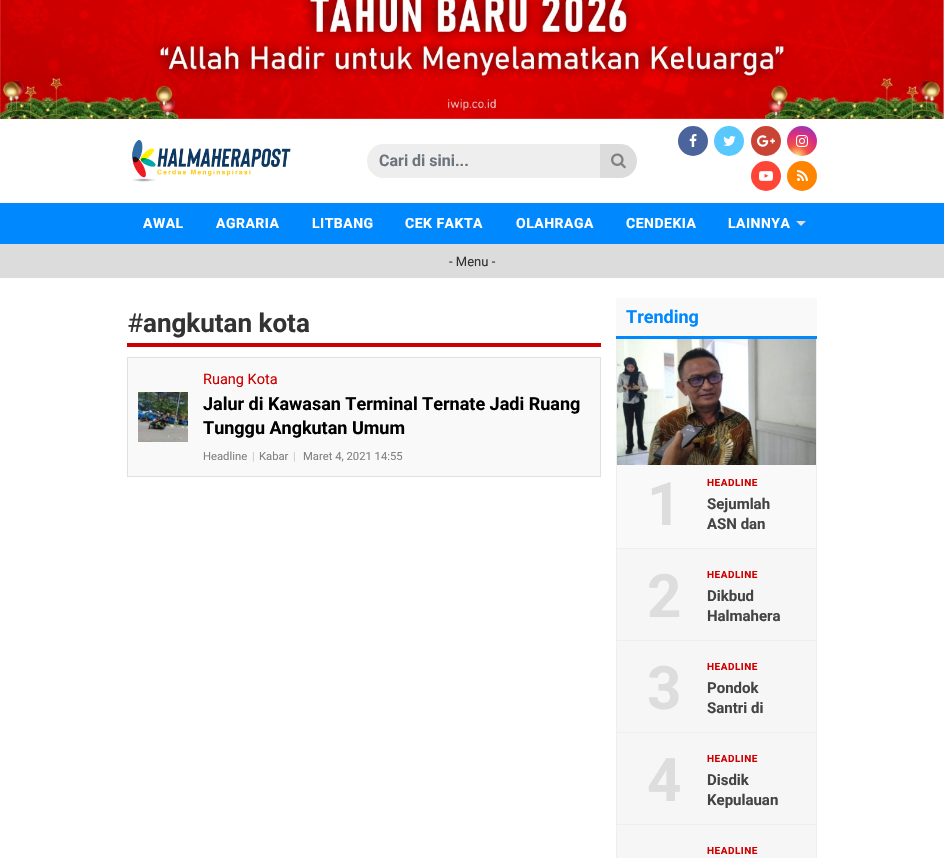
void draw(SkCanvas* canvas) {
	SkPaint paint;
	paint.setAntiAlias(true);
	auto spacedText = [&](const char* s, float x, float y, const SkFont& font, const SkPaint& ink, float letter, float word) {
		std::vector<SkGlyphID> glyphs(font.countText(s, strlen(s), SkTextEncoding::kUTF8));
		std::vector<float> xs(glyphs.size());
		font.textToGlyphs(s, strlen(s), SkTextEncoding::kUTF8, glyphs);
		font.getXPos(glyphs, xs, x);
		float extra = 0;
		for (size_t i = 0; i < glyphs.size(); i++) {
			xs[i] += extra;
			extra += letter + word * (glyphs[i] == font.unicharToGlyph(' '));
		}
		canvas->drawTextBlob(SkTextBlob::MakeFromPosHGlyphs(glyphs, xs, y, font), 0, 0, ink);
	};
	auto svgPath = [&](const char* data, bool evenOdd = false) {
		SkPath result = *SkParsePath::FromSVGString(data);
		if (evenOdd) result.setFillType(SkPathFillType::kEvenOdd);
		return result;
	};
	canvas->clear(0xffffffff);
	canvas->drawImageRect(SkImages::DeferredFromEncodedData(SkData::MakeFromFileName("img1.png")), SkRect::MakeXYWH(0, 0, 944, 119), SkSamplingOptions());
	canvas->drawImageRect(SkImages::DeferredFromEncodedData(SkData::MakeFromFileName("img2.png")), SkRect::MakeXYWH(132, 139, 159, 43), SkSamplingOptions());
	paint.setColor(0xffeeeeee);
	canvas->drawPath(svgPath("M384 144H600V178H384C374.5 178 367 170.5 367 161C367 151.5 374.5 144 384 144Z"), paint);
	SkFont f1(fontMgr->matchFamilyStyle("Roboto", SkFontStyle::Bold()), 16);
	f1.setSubpixel(true);
	paint.setColor(0xff6c757d);
	canvas->drawString("Cari di sini...", 379, 166, f1, paint);
	paint.setColor(0xffdcdcdc);
	canvas->drawPath(svgPath("M600 144H620C629.5 144 637 151.5 637 161C637 170.5 629.5 178 620 178H600Z"), paint);
	canvas->drawImageRect(SkImages::DeferredFromEncodedData(SkData::MakeFromFileName("img3.png")), SkRect::MakeXYWH(611, 153, 15, 16), SkSamplingOptions());
	paint.setColor(0xff4b649b);
	canvas->drawCircle(693, 141, 15, paint);
	canvas->drawImageRect(SkImages::DeferredFromEncodedData(SkData::MakeFromFileName("img4.png")), SkRect::MakeXYWH(689, 134, 8, 13), SkSamplingOptions());
	paint.setColor(0xff59c8ff);
	canvas->drawCircle(729, 141, 15, paint);
	canvas->drawImageRect(SkImages::DeferredFromEncodedData(SkData::MakeFromFileName("img5.png")), SkRect::MakeXYWH(723, 136, 13, 10), SkSamplingOptions());
	paint.setColor(0xffc94434);
	canvas->drawCircle(766, 141, 15, paint);
	canvas->drawImageRect(SkImages::DeferredFromEncodedData(SkData::MakeFromFileName("img6.png")), SkRect::MakeXYWH(757, 135, 18, 12), SkSamplingOptions());
	{
		const SkColor colors[] = {0xfffed373, 0xfff15245, 0xffd92e7f, 0xff9b36b7, 0xff515ecf};
		const float stops[] = {0.04, 0.3, 0.62, 0.85, 1};
		paint.setShader(SkGradientShader::MakeRadial({797, 156}, 36, colors, stops, 5, SkTileMode::kClamp));
		paint.setAlpha(255);
	}
	canvas->drawCircle(802, 141, 15, paint);
	canvas->drawImageRect(SkImages::DeferredFromEncodedData(SkData::MakeFromFileName("img7.png")), SkRect::MakeXYWH(796, 135, 12, 12), SkSamplingOptions());
	paint.setShader(nullptr);
	paint.setColor(0xffff4536);
	canvas->drawCircle(766, 176, 15, paint);
	canvas->drawImageRect(SkImages::DeferredFromEncodedData(SkData::MakeFromFileName("img8.png")), SkRect::MakeXYWH(759, 171, 14, 10), SkSamplingOptions());
	paint.setColor(0xffff8400);
	canvas->drawCircle(802, 176, 15, paint);
	canvas->drawImageRect(SkImages::DeferredFromEncodedData(SkData::MakeFromFileName("img9.png")), SkRect::MakeXYWH(797, 170, 11, 11), SkSamplingOptions());
	paint.setColor(0xff0088ff);
	canvas->drawRect(SkRect::MakeXYWH(0, 203, 944, 41), paint);
	SkFont f2(fontMgr->matchFamilyStyle("Roboto", SkFontStyle::Bold()), 14);
	f2.setSubpixel(true);
	paint.setColor(0xffffffff);
	spacedText("AWAL", 143, 228, f2, paint, 0.5, 0);
	spacedText("AGRARIA", 216, 228, f2, paint, 0.5, 0);
	spacedText("LITBANG", 312, 228, f2, paint, 0.5, 0);
	spacedText("CEK FAKTA", 405, 228, f2, paint, 0.5, 0);
	spacedText("OLAHRAGA", 516, 228, f2, paint, 0.5, 0);
	spacedText("CENDEKIA", 626, 228, f2, paint, 0.5, 0);
	spacedText("LAINNYA", 728, 228, f2, paint, 0.5, 0);
	paint.setColor(0xffdddddd);
	canvas->drawPath(svgPath("M796 221H806L801 226Z"), paint);
	paint.setColor(0xffdcdcdc);
	canvas->drawRect(SkRect::MakeXYWH(0, 244, 944, 34), paint);
	SkFont f3(fontMgr->matchFamilyStyle("Roboto", SkFontStyle::Normal()), 13);
	f3.setSubpixel(true);
	paint.setColor(0xff333333);
	canvas->drawString("- Menu -", 449, 266, f3, paint);
	paint.setColor(0xffcc0000);
	canvas->drawRect(SkRect::MakeXYWH(127, 343, 474, 4), paint);
	SkFont f4(fontMgr->matchFamilyStyle("Roboto", SkFontStyle::Normal()), 26);
	f4.setSubpixel(true);
	paint.setColor(0xff333333);
	canvas->drawString("#", 127, 332, f4, paint);
	SkFont f5(fontMgr->matchFamilyStyle("Roboto", SkFontStyle::Bold()), 26);
	f5.setSubpixel(true);
	canvas->drawString("angkutan kota", 143, 332, f5, paint);
	paint.setColor(0xfff9f9f9);
	canvas->drawRect(SkRect::MakeXYWH(127.5, 357.5, 473, 119), paint);
	paint.setStroke(true);
	paint.setStrokeWidth(1);
	paint.setColor(0xffe0e0e0);
	canvas->drawRect(SkRect::MakeXYWH(127.5, 357.5, 473, 119), paint);
	canvas->drawImageRect(SkImages::DeferredFromEncodedData(SkData::MakeFromFileName("img10.png")), SkRect::MakeXYWH(138, 392, 50, 50), SkSamplingOptions());
	SkFont f6(fontMgr->matchFamilyStyle("Roboto", SkFontStyle::Normal()), 14.5);
	f6.setSubpixel(true);
	paint.setStroke(false);
	paint.setColor(0xffcc0000);
	canvas->drawString("Ruang Kota", 203, 384, f6, paint);
	SkFont f7(fontMgr->matchFamilyStyle("Roboto", SkFontStyle::Bold()), 18);
	f7.setSubpixel(true);
	paint.setColor(0xff000000);
	canvas->drawString("Jalur di Kawasan Terminal Ternate Jadi Ruang", 203, 410, f7, paint);
	canvas->drawString("Tunggu Angkutan Umum", 203, 434, f7, paint);
	SkFont f8(fontMgr->matchFamilyStyle("Roboto", SkFontStyle::Normal()), 11.25);
	f8.setSubpixel(true);
	paint.setColor(0xff818181);
	canvas->drawString("Headline", 203, 460, f8, paint);
	paint.setColor(0xffcccccc);
	canvas->drawString("|", 252, 460, f8, paint);
	paint.setColor(0xff818181);
	canvas->drawString("Kabar", 259, 460, f8, paint);
	paint.setColor(0xffcccccc);
	canvas->drawString("|", 293, 460, f8, paint);
	paint.setColor(0xff818181);
	canvas->drawString("Maret 4, 2021 14:55", 303, 460, f8, paint);
	paint.setColor(0xfff9f9f9);
	canvas->drawRect(SkRect::MakeXYWH(616, 298, 201, 38), paint);
	paint.setColor(0xff0088ff);
	canvas->drawRect(SkRect::MakeXYWH(616, 336, 201, 3), paint);
	canvas->drawString("Trending", 626, 323, f7, paint);
	paint.setColor(0xfff9f9f9);
	canvas->drawRect(SkRect::MakeXYWH(617, 465, 199, 83), paint);
	paint.setColor(0xffeeeeee);
	canvas->drawRect(SkRect::MakeXYWH(816, 339, 1, 519), paint);
	canvas->drawRect(SkRect::MakeXYWH(616, 548, 201, 1), paint);
	canvas->drawRect(SkRect::MakeXYWH(616, 339, 1, 210), paint);
	canvas->drawImageRect(SkImages::DeferredFromEncodedData(SkData::MakeFromFileName("img11.png")), SkRect::MakeXYWH(617, 339, 199, 126), SkSamplingOptions());
	SkFont f9(fontMgr->matchFamilyStyle("Roboto", SkFontStyle::Bold()), 60);
	f9.setSubpixel(true);
	paint.setColor(0xffdddddd);
	spacedText("1", 647, 525, f9, paint, -5, 0);
	SkFont f10(fontMgr->matchFamilyStyle("Roboto", SkFontStyle::Bold()), 10);
	f10.setSubpixel(true);
	paint.setColor(0xffcc0000);
	spacedText("HEADLINE", 707, 486, f10, paint, 0.5, 0);
	SkFont f11(fontMgr->matchFamilyStyle("Roboto", SkFontStyle::Bold()), 15);
	f11.setSubpixel(true);
	paint.setColor(0xff444444);
	canvas->drawString("Sejumlah", 707, 509, f11, paint);
	canvas->drawString("ASN dan", 707, 529, f11, paint);
	paint.setColor(0xfff6f6f6);
	canvas->drawRect(SkRect::MakeXYWH(617, 549, 199, 91), paint);
	paint.setColor(0xffeeeeee);
	canvas->drawRect(SkRect::MakeXYWH(616, 640, 201, 1), paint);
	canvas->drawRect(SkRect::MakeXYWH(616, 549, 1, 92), paint);
	paint.setColor(0xffdddddd);
	spacedText("2", 647, 617, f9, paint, -5, 0);
	paint.setColor(0xffcc0000);
	spacedText("HEADLINE", 707, 578, f10, paint, 0.5, 0);
	paint.setColor(0xff444444);
	canvas->drawString("Dikbud", 707, 601, f11, paint);
	canvas->drawString("Halmahera", 707, 621, f11, paint);
	paint.setColor(0xfff6f6f6);
	canvas->drawRect(SkRect::MakeXYWH(617, 641, 199, 91), paint);
	paint.setColor(0xffeeeeee);
	canvas->drawRect(SkRect::MakeXYWH(616, 732, 201, 1), paint);
	canvas->drawRect(SkRect::MakeXYWH(616, 641, 1, 92), paint);
	paint.setColor(0xffdddddd);
	spacedText("3", 647, 709, f9, paint, -5, 0);
	paint.setColor(0xffcc0000);
	spacedText("HEADLINE", 707, 670, f10, paint, 0.5, 0);
	paint.setColor(0xff444444);
	canvas->drawString("Pondok", 707, 693, f11, paint);
	canvas->drawString("Santri di", 707, 713, f11, paint);
	paint.setColor(0xfff6f6f6);
	canvas->drawRect(SkRect::MakeXYWH(617, 733, 199, 91), paint);
	paint.setColor(0xffeeeeee);
	canvas->drawRect(SkRect::MakeXYWH(616, 824, 201, 1), paint);
	canvas->drawRect(SkRect::MakeXYWH(616, 733, 1, 125), paint);
	paint.setColor(0xffdddddd);
	spacedText("4", 647, 801, f9, paint, -5, 0);
	paint.setColor(0xffcc0000);
	spacedText("HEADLINE", 707, 762, f10, paint, 0.5, 0);
	paint.setColor(0xff444444);
	canvas->drawString("Disdik", 707, 785, f11, paint);
	canvas->drawString("Kepulauan", 707, 805, f11, paint);
	paint.setColor(0xfff6f6f6);
	canvas->drawRect(SkRect::MakeXYWH(617, 825, 199, 33), paint);
	paint.setColor(0xffcc0000);
	spacedText("HEADLINE", 707, 854, f10, paint, 0.5, 0);
}
